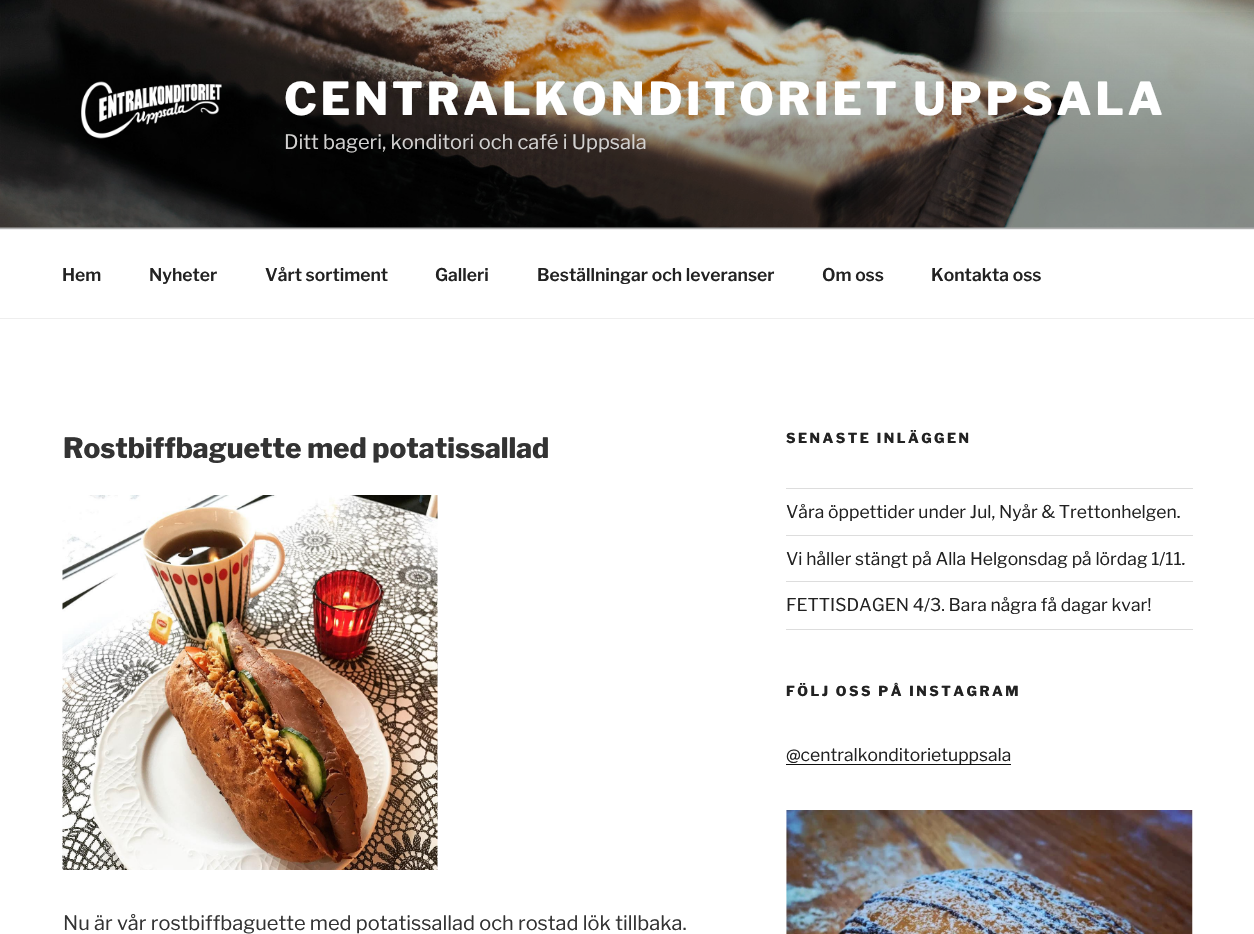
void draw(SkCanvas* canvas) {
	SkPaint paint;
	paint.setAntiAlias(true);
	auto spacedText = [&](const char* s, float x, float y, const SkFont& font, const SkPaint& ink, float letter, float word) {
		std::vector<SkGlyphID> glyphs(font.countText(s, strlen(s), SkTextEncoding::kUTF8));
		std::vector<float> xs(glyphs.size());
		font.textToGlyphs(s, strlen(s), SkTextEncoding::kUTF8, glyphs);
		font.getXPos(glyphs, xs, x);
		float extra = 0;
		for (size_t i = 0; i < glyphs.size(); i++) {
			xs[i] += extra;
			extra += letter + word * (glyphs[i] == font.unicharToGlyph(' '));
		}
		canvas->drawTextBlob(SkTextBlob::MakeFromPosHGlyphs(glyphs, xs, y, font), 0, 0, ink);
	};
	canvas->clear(0xffffffff);
	paint.setColor(0xfffafafa);
	canvas->drawRect(SkRect::MakeXYWH(0, 227, 1254, 2), paint);
	canvas->drawImageRect(SkImages::DeferredFromEncodedData(SkData::MakeFromFileName("img1.png")), SkRect::MakeXYWH(0, 0, 1254, 228), SkSamplingOptions());
	{
		const SkColor colors[] = {0x00000000, 0x4d000000, 0x4d000000};
		const float stops[] = {0, 0.75, 1};
		const SkPoint ends[] = {{628, 0}, {628, 229}};
		paint.setShader(SkGradientShader::MakeLinear(ends, colors, stops, 3, SkTileMode::kClamp));
		paint.setAlpha(255);
	}
	canvas->drawRect(SkRect::MakeXYWH(0, 12, 1254, 217), paint);
	canvas->drawImageRect(SkImages::DeferredFromEncodedData(SkData::MakeFromFileName("img2.png")), SkRect::MakeXYWH(81, 81, 141, 58), SkSamplingOptions());
	SkFont f1(fontMgr->matchFamilyStyle("Libre Franklin", SkFontStyle(100, SkFontStyle::kNormal_Width, SkFontStyle::kUpright_Slant)), 45);
	f1.setSubpixel(true);
	paint.setShader(nullptr);
	paint.setColor(0xffffffff);
	spacedText("CENTRALKONDITORIET UPPSALA", 284, 115, f1, paint, 3.6, 0);
	SkFont f2(fontMgr->matchFamilyStyle("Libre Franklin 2", SkFontStyle(100, SkFontStyle::kNormal_Width, SkFontStyle::kUpright_Slant)), 20);
	f2.setSubpixel(true);
	paint.setColor(0xffd2d1d0);
	canvas->drawString("Ditt bageri, konditori och café i Uppsala", 284, 149, f2, paint);
	paint.setColor(0xffeeeeee);
	canvas->drawRect(SkRect::MakeXYWH(0, 229, 1254, 1), paint);
	canvas->drawRect(SkRect::MakeXYWH(0, 318, 1254, 1), paint);
	SkFont f3(fontMgr->matchFamilyStyle("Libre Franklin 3", SkFontStyle(100, SkFontStyle::kNormal_Width, SkFontStyle::kUpright_Slant)), 17.5);
	f3.setSubpixel(true);
	paint.setColor(0xff222222);
	canvas->drawString("Hem", 62, 281, f3, paint);
	canvas->drawString("Nyheter", 149, 281, f3, paint);
	canvas->drawString("Vårt sortiment", 265, 281, f3, paint);
	canvas->drawString("Galleri", 435, 281, f3, paint);
	canvas->drawString("Beställningar och leveranser", 537, 281, f3, paint);
	canvas->drawString("Om oss", 822, 281, f3, paint);
	canvas->drawString("Kontakta oss", 931, 281, f3, paint);
	SkFont f4(fontMgr->matchFamilyStyle("Libre Franklin", SkFontStyle(100, SkFontStyle::kNormal_Width, SkFontStyle::kUpright_Slant)), 28);
	f4.setSubpixel(true);
	paint.setColor(0xff333333);
	canvas->drawString("Rostbiffbaguette med potatissallad", 63, 458, f4, paint);
	canvas->drawImageRect(SkImages::DeferredFromEncodedData(SkData::MakeFromFileName("img3.png")), SkRect::MakeXYWH(62, 495, 376, 375), SkSamplingOptions());
	canvas->drawString("Nu är vår rostbiffbaguette med potatissallad och rostad lök tillbaka.", 63, 930, f2, paint);
	SkFont f5(fontMgr->matchFamilyStyle("Libre Franklin", SkFontStyle(100, SkFontStyle::kNormal_Width, SkFontStyle::kUpright_Slant)), 13.75);
	f5.setSubpixel(true);
	paint.setColor(0xff222222);
	spacedText("SENASTE INLÄGGEN", 786, 443, f5, paint, 2.5, 0);
	paint.setColor(0xffdddddd);
	canvas->drawRect(SkRect::MakeXYWH(786, 488, 407, 1), paint);
	canvas->drawRect(SkRect::MakeXYWH(786, 535, 407, 1), paint);
	SkFont f6(fontMgr->matchFamilyStyle("Libre Franklin 2", SkFontStyle(100, SkFontStyle::kNormal_Width, SkFontStyle::kUpright_Slant)), 17.5);
	f6.setSubpixel(true);
	paint.setColor(0xff222222);
	canvas->drawString("Våra öppettider under Jul, Nyår & Trettonhelgen.", 786, 518, f6, paint);
	paint.setColor(0xffdddddd);
	canvas->drawRect(SkRect::MakeXYWH(786, 581, 407, 1), paint);
	paint.setColor(0xff222222);
	canvas->drawString("Vi håller stängt på Alla Helgonsdag på lördag 1/11.", 786, 565, f6, paint);
	paint.setColor(0xffdddddd);
	canvas->drawRect(SkRect::MakeXYWH(786, 629, 407, 1), paint);
	paint.setColor(0xff222222);
	canvas->drawString("FETTISDAGEN 4/3. Bara några få dagar kvar!", 786, 611, f6, paint);
	spacedText("FÖLJ OSS PÅ INSTAGRAM", 786, 696, f5, paint, 2.5, 0);
	canvas->drawString("@centralkonditorietuppsala", 786, 761, f6, paint);
	paint.setColor(0xff0f0f0f);
	canvas->drawRect(SkRect::MakeXYWH(786, 764, 225, 1), paint);
	canvas->drawImageRect(SkImages::DeferredFromEncodedData(SkData::MakeFromFileName("img4.png")), SkRect::MakeXYWH(786, 810, 407, 124), SkSamplingOptions());
}
